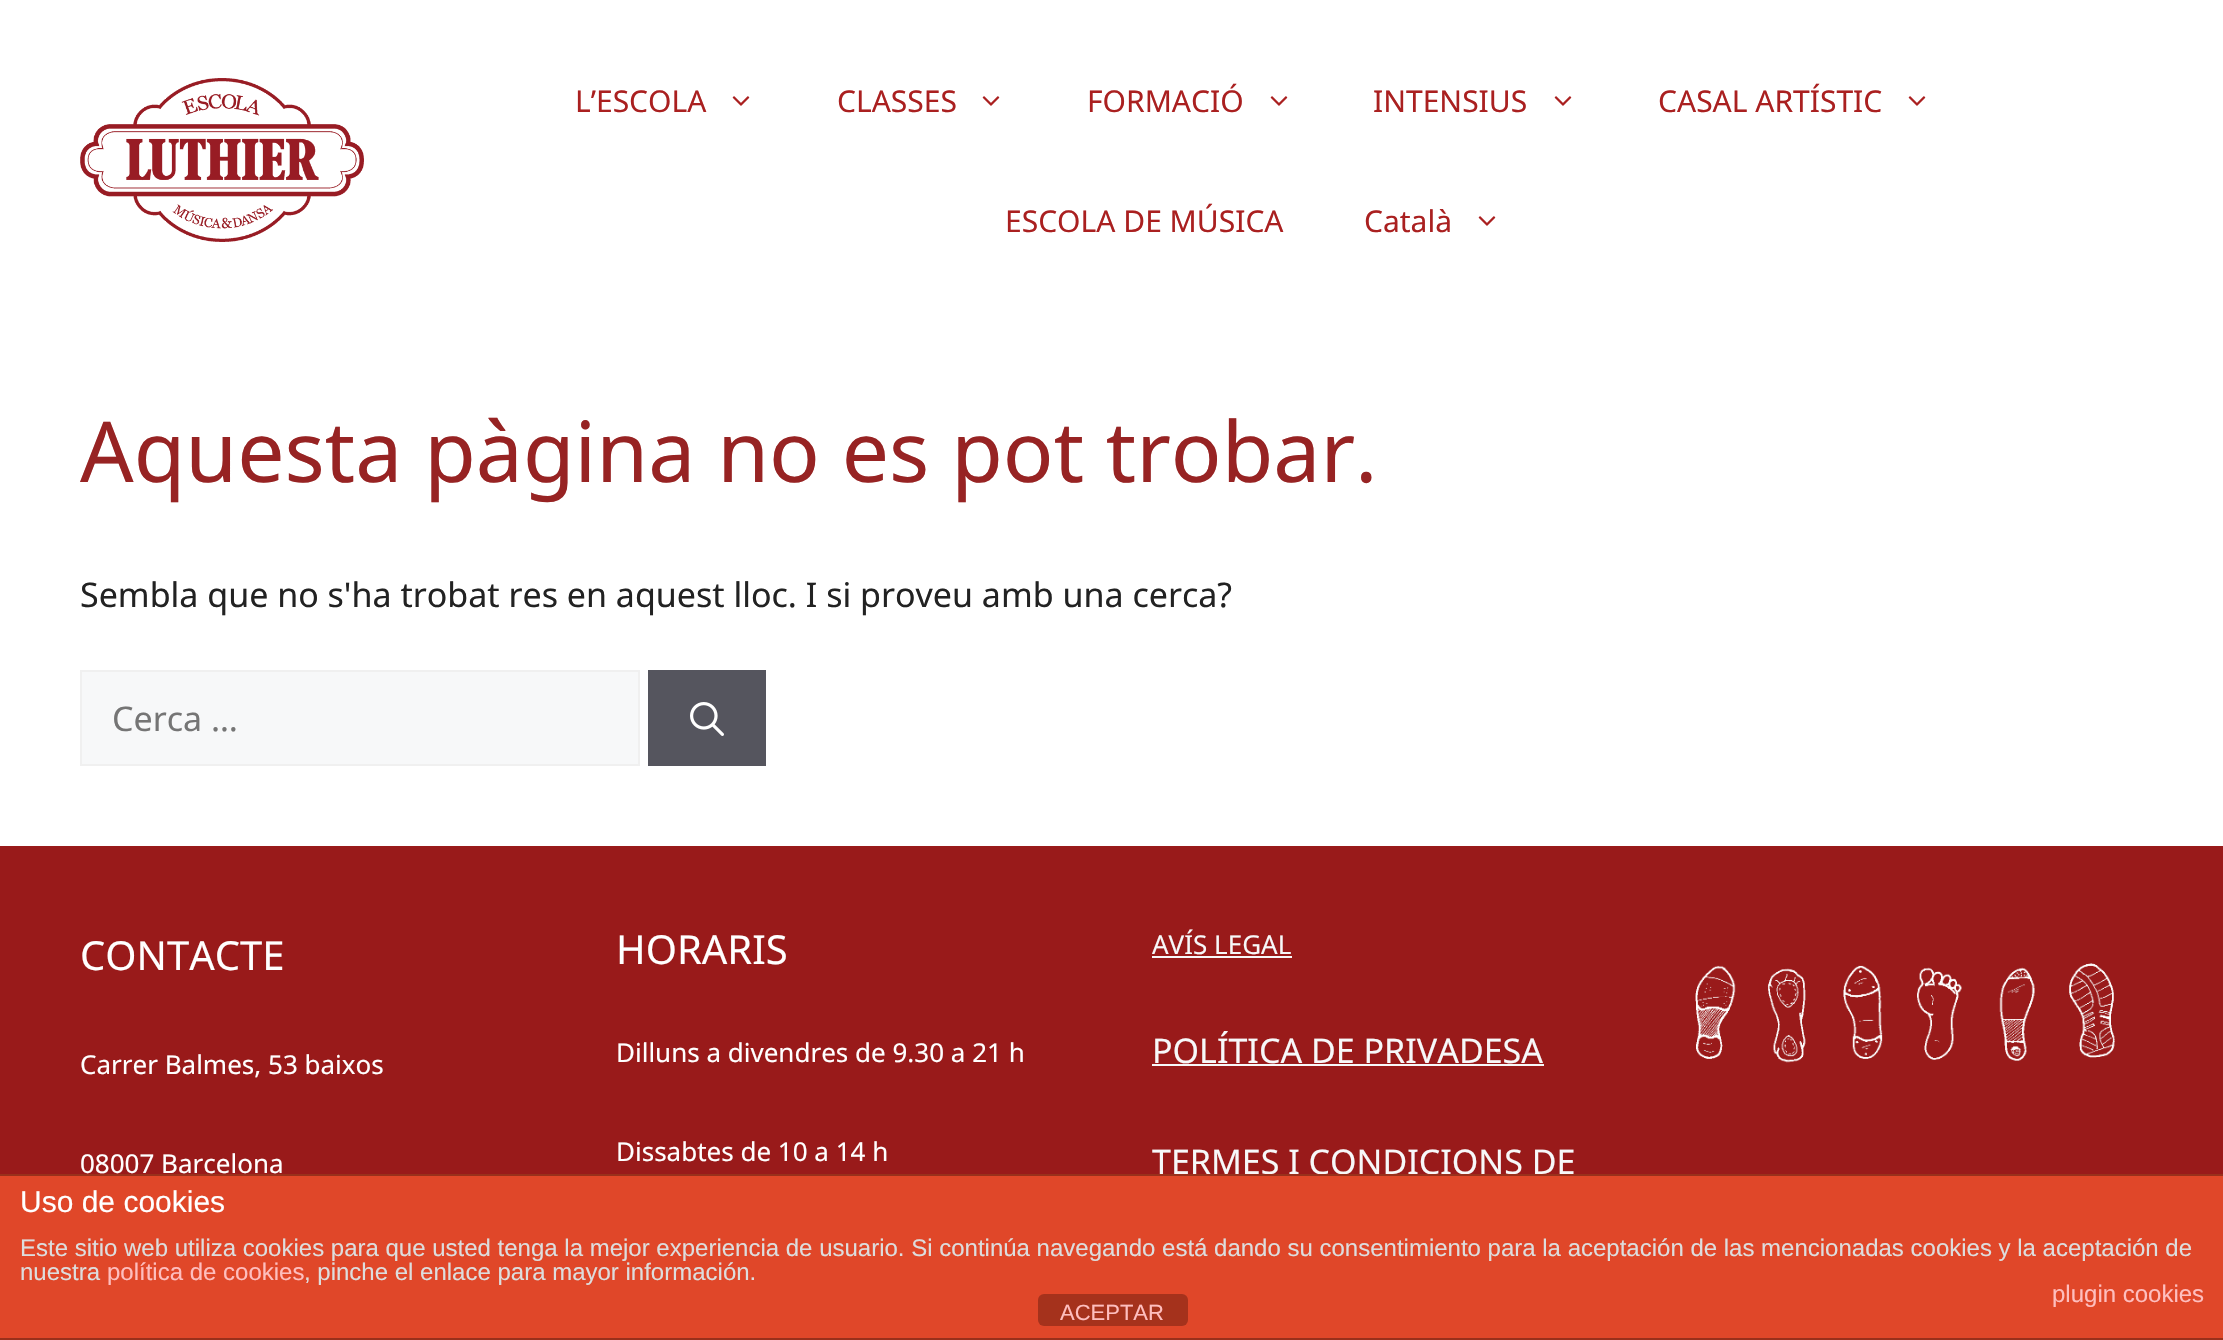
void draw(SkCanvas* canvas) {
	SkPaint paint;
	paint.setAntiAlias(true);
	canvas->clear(0xffffffff);
	canvas->drawImageRect(SkImages::DeferredFromEncodedData(SkData::MakeFromFileName("img1.png")), SkRect::MakeXYWH(80, 78, 284, 164), SkSamplingOptions());
	SkFont f1(fontMgr->matchFamilyStyle("Noto Sans", SkFontStyle::Normal()), 30);
	f1.setSubpixel(true);
	paint.setColor(0xffaa2020);
	canvas->drawString("L’ESCOLA", 575, 112, f1, paint);
	canvas->drawImageRect(SkImages::DeferredFromEncodedData(SkData::MakeFromFileName("img2.png")), SkRect::MakeXYWH(732, 96, 18, 10), SkSamplingOptions());
	canvas->drawString("CLASSES", 837, 112, f1, paint);
	canvas->drawImageRect(SkImages::DeferredFromEncodedData(SkData::MakeFromFileName("img2.png")), SkRect::MakeXYWH(982, 96, 18, 10), SkSamplingOptions());
	canvas->drawString("FORMACIÓ", 1087, 112, f1, paint);
	canvas->drawImageRect(SkImages::DeferredFromEncodedData(SkData::MakeFromFileName("img2.png")), SkRect::MakeXYWH(1270, 96, 18, 10), SkSamplingOptions());
	canvas->drawString("INTENSIUS", 1373, 112, f1, paint);
	canvas->drawImageRect(SkImages::DeferredFromEncodedData(SkData::MakeFromFileName("img2.png")), SkRect::MakeXYWH(1554, 96, 18, 10), SkSamplingOptions());
	canvas->drawString("CASAL ARTÍSTIC", 1658, 112, f1, paint);
	canvas->drawImageRect(SkImages::DeferredFromEncodedData(SkData::MakeFromFileName("img2.png")), SkRect::MakeXYWH(1908, 96, 18, 10), SkSamplingOptions());
	canvas->drawString("ESCOLA DE MÚSICA", 1005, 232, f1, paint);
	canvas->drawString("Català", 1364, 232, f1, paint);
	canvas->drawImageRect(SkImages::DeferredFromEncodedData(SkData::MakeFromFileName("img2.png")), SkRect::MakeXYWH(1478, 216, 18, 10), SkSamplingOptions());
	SkFont f2(fontMgr->matchFamilyStyle("Noto Sans", SkFontStyle::Normal()), 84);
	f2.setSubpixel(true);
	paint.setColor(0xff972323);
	canvas->drawString("Aquesta pàgina no es pot trobar.", 80, 482, f2, paint);
	SkFont f3(fontMgr->matchFamilyStyle("Noto Sans", SkFontStyle::Normal()), 34);
	f3.setSubpixel(true);
	paint.setColor(0xff222222);
	canvas->drawString("Sembla que no s'ha trobat res en aquest lloc. I si proveu amb una cerca?", 80, 607, f3, paint);
	paint.setColor(0xfff7f8f9);
	canvas->drawRect(SkRect::MakeXYWH(81, 671, 558, 94), paint);
	paint.setStroke(true);
	paint.setStrokeWidth(2);
	paint.setColor(0xfff0f0f0);
	canvas->drawRect(SkRect::MakeXYWH(81, 671, 558, 94), paint);
	paint.setStroke(false);
	paint.setColor(0xff757575);
	canvas->drawString("Cerca …", 112, 731, f3, paint);
	paint.setColor(0xff55555e);
	canvas->drawRect(SkRect::MakeXYWH(648, 670, 118, 96), paint);
	canvas->drawImageRect(SkImages::DeferredFromEncodedData(SkData::MakeFromFileName("img3.png")), SkRect::MakeXYWH(690, 702, 34, 34), SkSamplingOptions());
	paint.setColor(0xff991a1a);
	canvas->drawRect(SkRect::MakeXYWH(0, 846, 2223, 328), paint);
	SkFont f4(fontMgr->matchFamilyStyle("Noto Sans", SkFontStyle::Normal()), 40);
	f4.setSubpixel(true);
	paint.setColor(0xffffffff);
	canvas->drawString("CONTACTE", 80, 970, f4, paint);
	SkFont f5(fontMgr->matchFamilyStyle("Noto Sans", SkFontStyle::Normal()), 26);
	f5.setSubpixel(true);
	canvas->drawString("Carrer Balmes, 53 baixos", 80, 1074, f5, paint);
	canvas->drawString("08007 Barcelona", 80, 1173, f5, paint);
	canvas->drawString("HORARIS", 616, 964, f4, paint);
	canvas->drawString("Dilluns a divendres de 9.30 a 21 h", 616, 1062, f5, paint);
	canvas->drawString("Dissabtes de 10 a 14 h", 616, 1161, f5, paint);
	paint.setColor(0xfff7f8f9);
	canvas->drawString("AVÍS LEGAL", 1152, 954, f5, paint);
	canvas->drawRect(SkRect::MakeXYWH(1152, 956, 140, 2), paint);
	canvas->drawString("POLÍTICA DE PRIVADESA", 1152, 1063, f3, paint);
	canvas->drawRect(SkRect::MakeXYWH(1152, 1064, 392, 2), paint);
	canvas->drawString("TERMES I CONDICIONS DE", 1152, 1174, f3, paint);
	canvas->drawImageRect(SkImages::DeferredFromEncodedData(SkData::MakeFromFileName("img4.png")), SkRect::MakeXYWH(1695, 963, 420, 100), SkSamplingOptions());
	paint.setColor(0xffe04729);
	canvas->drawRect(SkRect::MakeXYWH(0, 1176, 2223, 162), paint);
	paint.setColor(0xff99301b);
	canvas->drawRect(SkRect::MakeXYWH(0, 1174, 2223, 2), paint);
	canvas->drawRect(SkRect::MakeXYWH(0, 1338, 2223, 2), paint);
	SkFont f6(fontMgr->matchFamilyStyle("Liberation Sans", SkFontStyle::Normal()), 30);
	f6.setSubpixel(true);
	paint.setColor(0xffffffff);
	canvas->drawString("Uso de cookies", 20, 1212, f6, paint);
	SkFont f7(fontMgr->matchFamilyStyle("Liberation Sans", SkFontStyle::Normal()), 24);
	f7.setSubpixel(true);
	paint.setColor(0xffdddddd);
	canvas->drawString("Este sitio web utiliza cookies para que usted tenga la mejor experiencia de usuario. Si continúa navegando está dando su consentimiento para la aceptación de las mencionadas cookies y la aceptación de", 20, 1256, f7, paint);
	canvas->drawString("nuestra", 20, 1280, f7, paint);
	paint.setColor(0xfffebebe);
	canvas->drawString("política de cookies", 107, 1280, f7, paint);
	paint.setColor(0xffdddddd);
	canvas->drawString(", pinche el enlace para mayor información.", 304, 1280, f7, paint);
	paint.setColor(0xfffebebe);
	canvas->drawString("plugin cookies", 2052, 1302, f7, paint);
	paint.setColor(0xffa5321c);
	canvas->drawRoundRect(SkRect::MakeXYWH(1038, 1294, 150, 32), 6, 6, paint);
	SkFont f8(fontMgr->matchFamilyStyle("Liberation Sans", SkFontStyle::Normal()), 22);
	f8.setSubpixel(true);
	paint.setColor(0xfffebebe);
	canvas->drawString("ACEPTAR", 1060, 1320, f8, paint);
}
